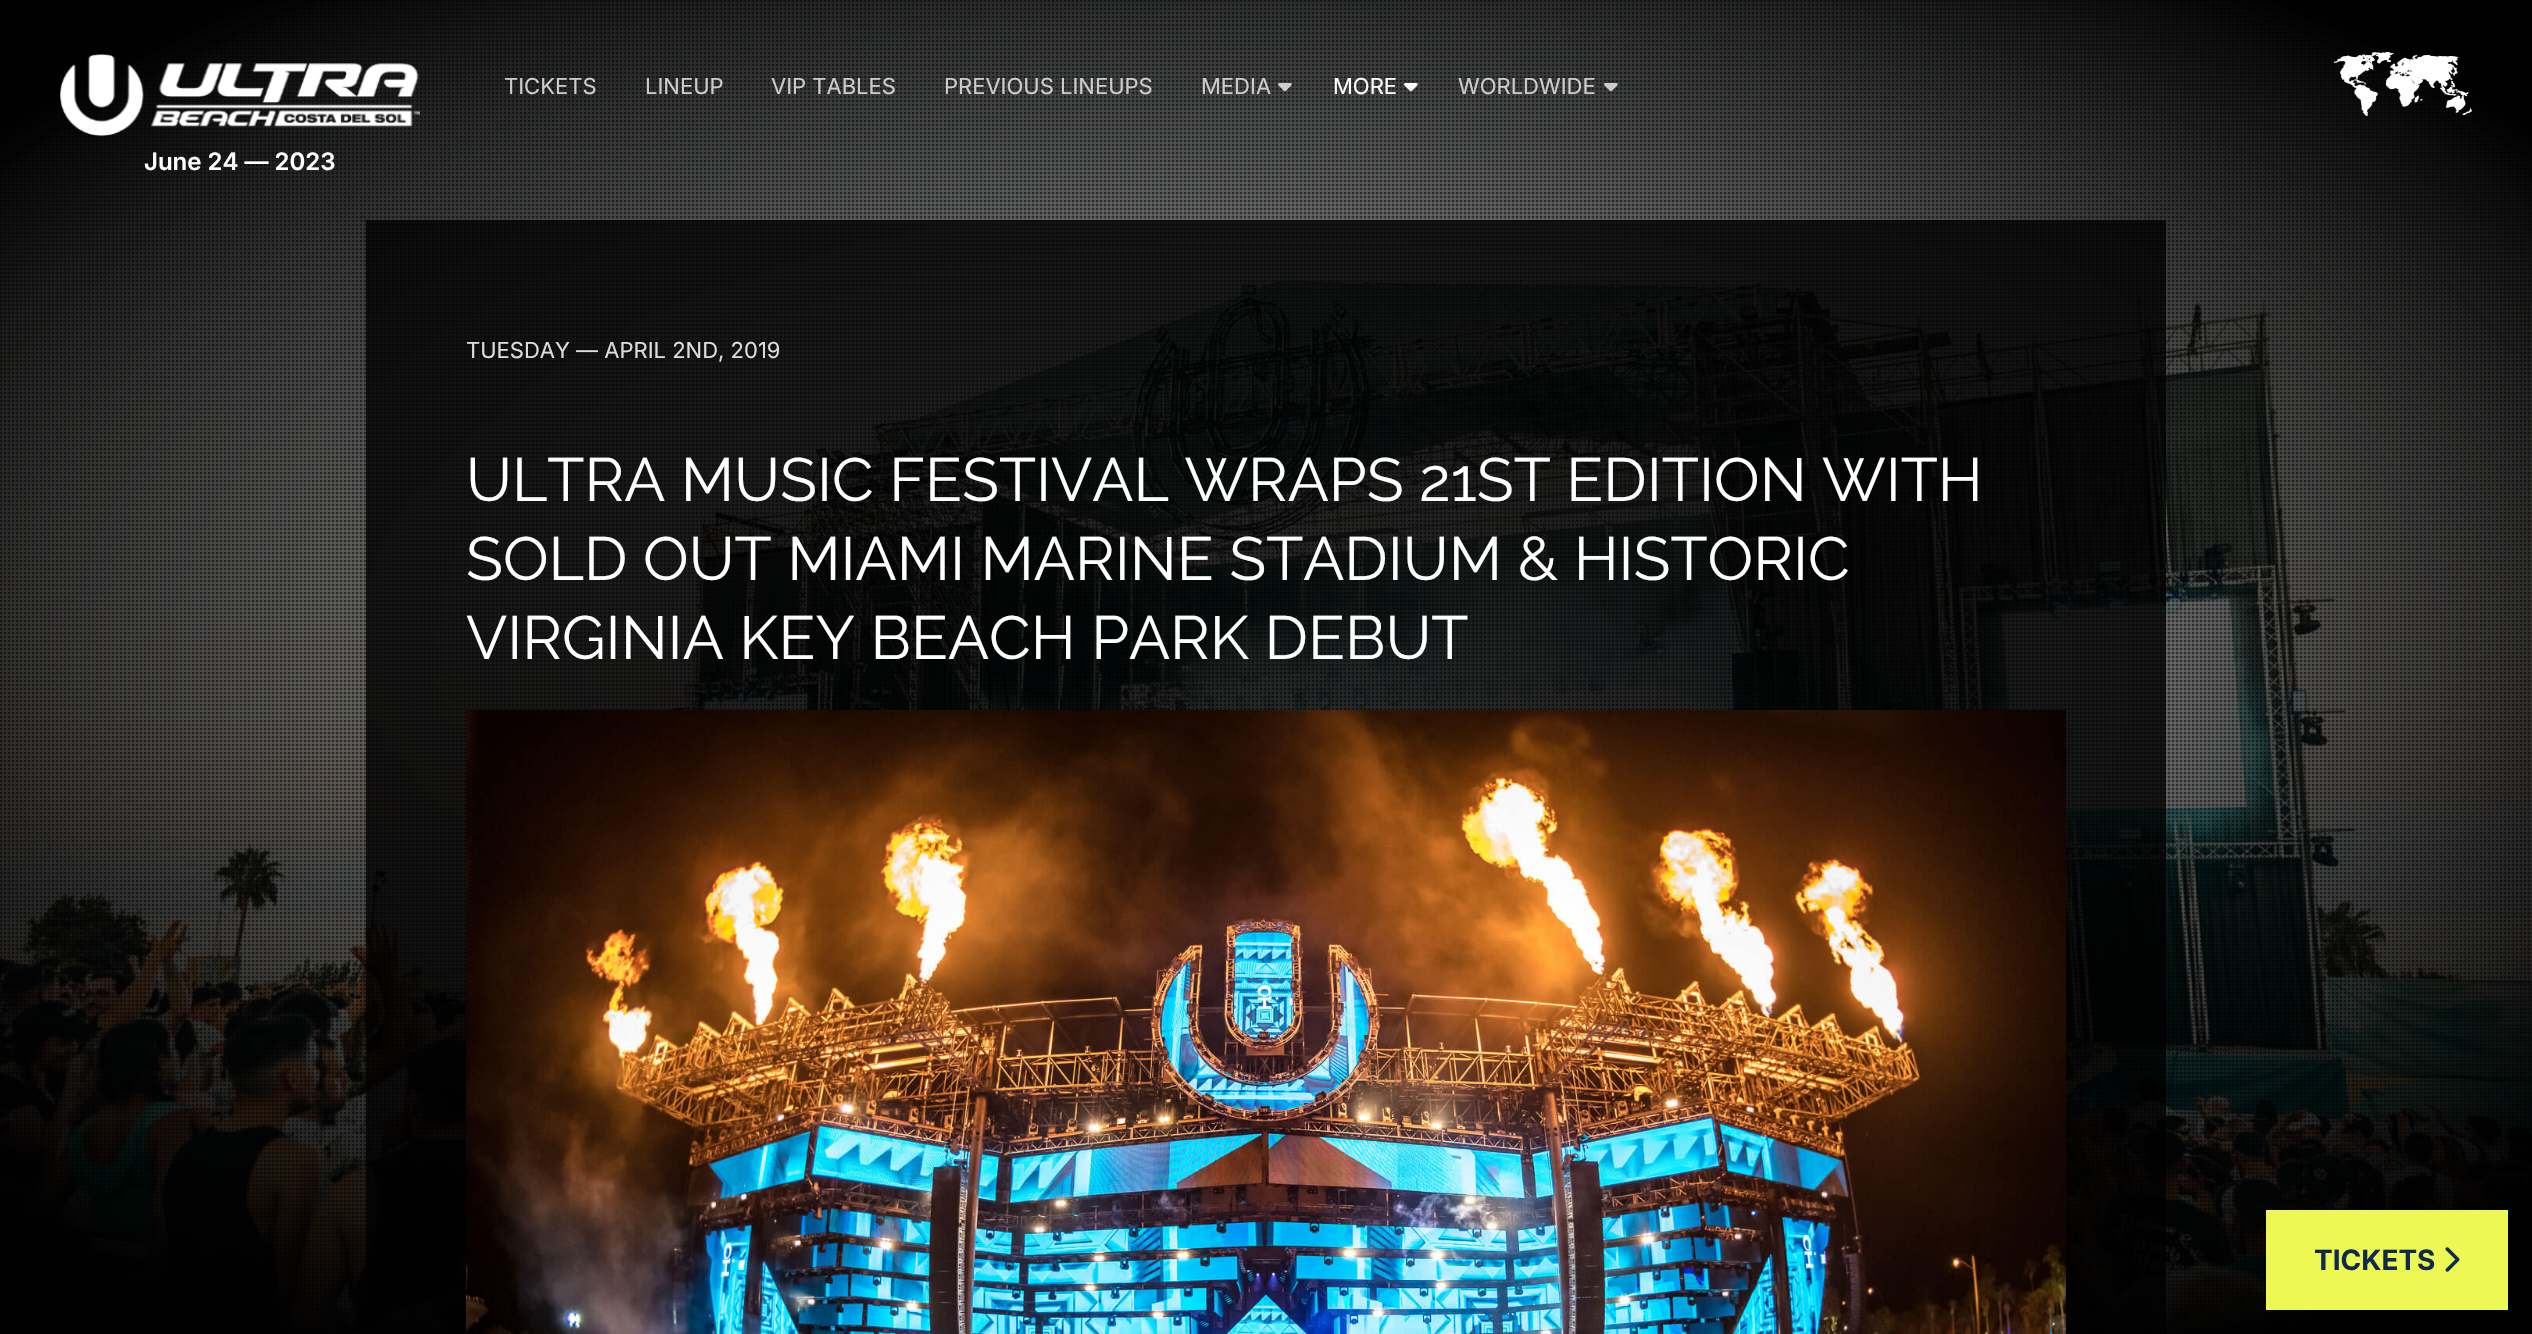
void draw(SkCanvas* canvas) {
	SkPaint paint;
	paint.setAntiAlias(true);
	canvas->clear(0xffffffff);
	canvas->drawImageRect(SkImages::DeferredFromEncodedData(SkData::MakeFromFileName("img1.png")), SkRect::MakeXYWH(0, 0, 2532, 1334), SkSamplingOptions());
	{
		const SkColor colors[] = {0x00000000, 0xff000000};
		const float stops[] = {0, 0.91};
		SkMatrix m = SkMatrix::Translate(1266, 667).preScale(1790, 943);
		paint.setShader(SkGradientShader::MakeRadial({0, 0}, 1, colors, stops, 2, SkTileMode::kClamp, 0, &m));
		paint.setAlpha(255);
	}
	canvas->drawRect(SkRect::MakeXYWH(0, 0, 2532, 1334), paint);
	canvas->drawImageRect(SkImages::DeferredFromEncodedData(SkData::MakeFromFileName("img2.png")), SkRect::MakeXYWH(0, 0, 2532, 1334), SkSamplingOptions());
	SkFont f1(fontMgr->matchFamilyStyle("Inter", SkFontStyle::Normal()), 22);
	f1.setSubpixel(true);
	paint.setShader(nullptr);
	paint.setColor(0xffcccccc);
	canvas->drawString("TICKETS", 504, 94, f1, paint);
	canvas->drawString("LINEUP", 645, 94, f1, paint);
	canvas->drawString("VIP TABLES", 771, 94, f1, paint);
	canvas->drawString("PREVIOUS LINEUPS", 944, 94, f1, paint);
	canvas->drawString("MEDIA", 1201, 94, f1, paint);
	canvas->drawImageRect(SkImages::DeferredFromEncodedData(SkData::MakeFromFileName("img3.png")), SkRect::MakeXYWH(1278, 83, 14, 9), SkSamplingOptions());
	paint.setColor(0xffffffff);
	canvas->drawString("MORE", 1333, 94, f1, paint);
	canvas->drawImageRect(SkImages::DeferredFromEncodedData(SkData::MakeFromFileName("img4.png")), SkRect::MakeXYWH(1404, 83, 14, 9), SkSamplingOptions());
	paint.setColor(0xffcccccc);
	canvas->drawString("WORLDWIDE", 1458, 94, f1, paint);
	canvas->drawImageRect(SkImages::DeferredFromEncodedData(SkData::MakeFromFileName("img5.png")), SkRect::MakeXYWH(1604, 83, 14, 9), SkSamplingOptions());
	canvas->drawImageRect(SkImages::DeferredFromEncodedData(SkData::MakeFromFileName("img6.png")), SkRect::MakeXYWH(2334, 52, 138, 64), SkSamplingOptions());
	canvas->drawImageRect(SkImages::DeferredFromEncodedData(SkData::MakeFromFileName("img7.png")), SkRect::MakeXYWH(60, 54, 360, 83), SkSamplingOptions());
	SkFont f2(fontMgr->matchFamilyStyle("Inter", SkFontStyle(600, SkFontStyle::kNormal_Width, SkFontStyle::kUpright_Slant)), 24);
	f2.setSubpixel(true);
	paint.setColor(0xffffffff);
	canvas->drawString("June 24 — 2023", 144, 170, f2, paint);
	paint.setColor(0xcc000000);
	canvas->drawRect(SkRect::MakeXYWH(366, 220, 1800, 1114), paint);
	paint.setColor(0xffdddddd);
	canvas->drawString("TUESDAY — APRIL 2ND, 2019", 466, 358, f1, paint);
	SkFont f3(fontMgr->matchFamilyStyle("Raleway", SkFontStyle::Normal()), 60.8);
	f3.setSubpixel(true);
	paint.setColor(0xffffffff);
	canvas->drawString("ULTRA MUSIC FESTIVAL WRAPS 21ST EDITION WITH", 466, 501, f3, paint);
	canvas->drawString("SOLD OUT MIAMI MARINE STADIUM & HISTORIC", 466, 580, f3, paint);
	canvas->drawString("VIRGINIA KEY BEACH PARK DEBUT", 466, 659, f3, paint);
	canvas->drawImageRect(SkImages::DeferredFromEncodedData(SkData::MakeFromFileName("img8.png")), SkRect::MakeXYWH(466, 710, 1600, 624), SkSamplingOptions());
	paint.setColor(0xffedf855);
	canvas->drawRect(SkRect::MakeXYWH(2266, 1210, 242, 100), paint);
	SkFont f4(fontMgr->matchFamilyStyle("Inter", SkFontStyle::Bold()), 28);
	f4.setSubpixel(true);
	paint.setColor(0xff0f294f);
	canvas->drawString("TICKETS", 2314, 1270, f4, paint);
	canvas->drawImageRect(SkImages::DeferredFromEncodedData(SkData::MakeFromFileName("img9.png")), SkRect::MakeXYWH(2445, 1247, 15, 25), SkSamplingOptions());
}
